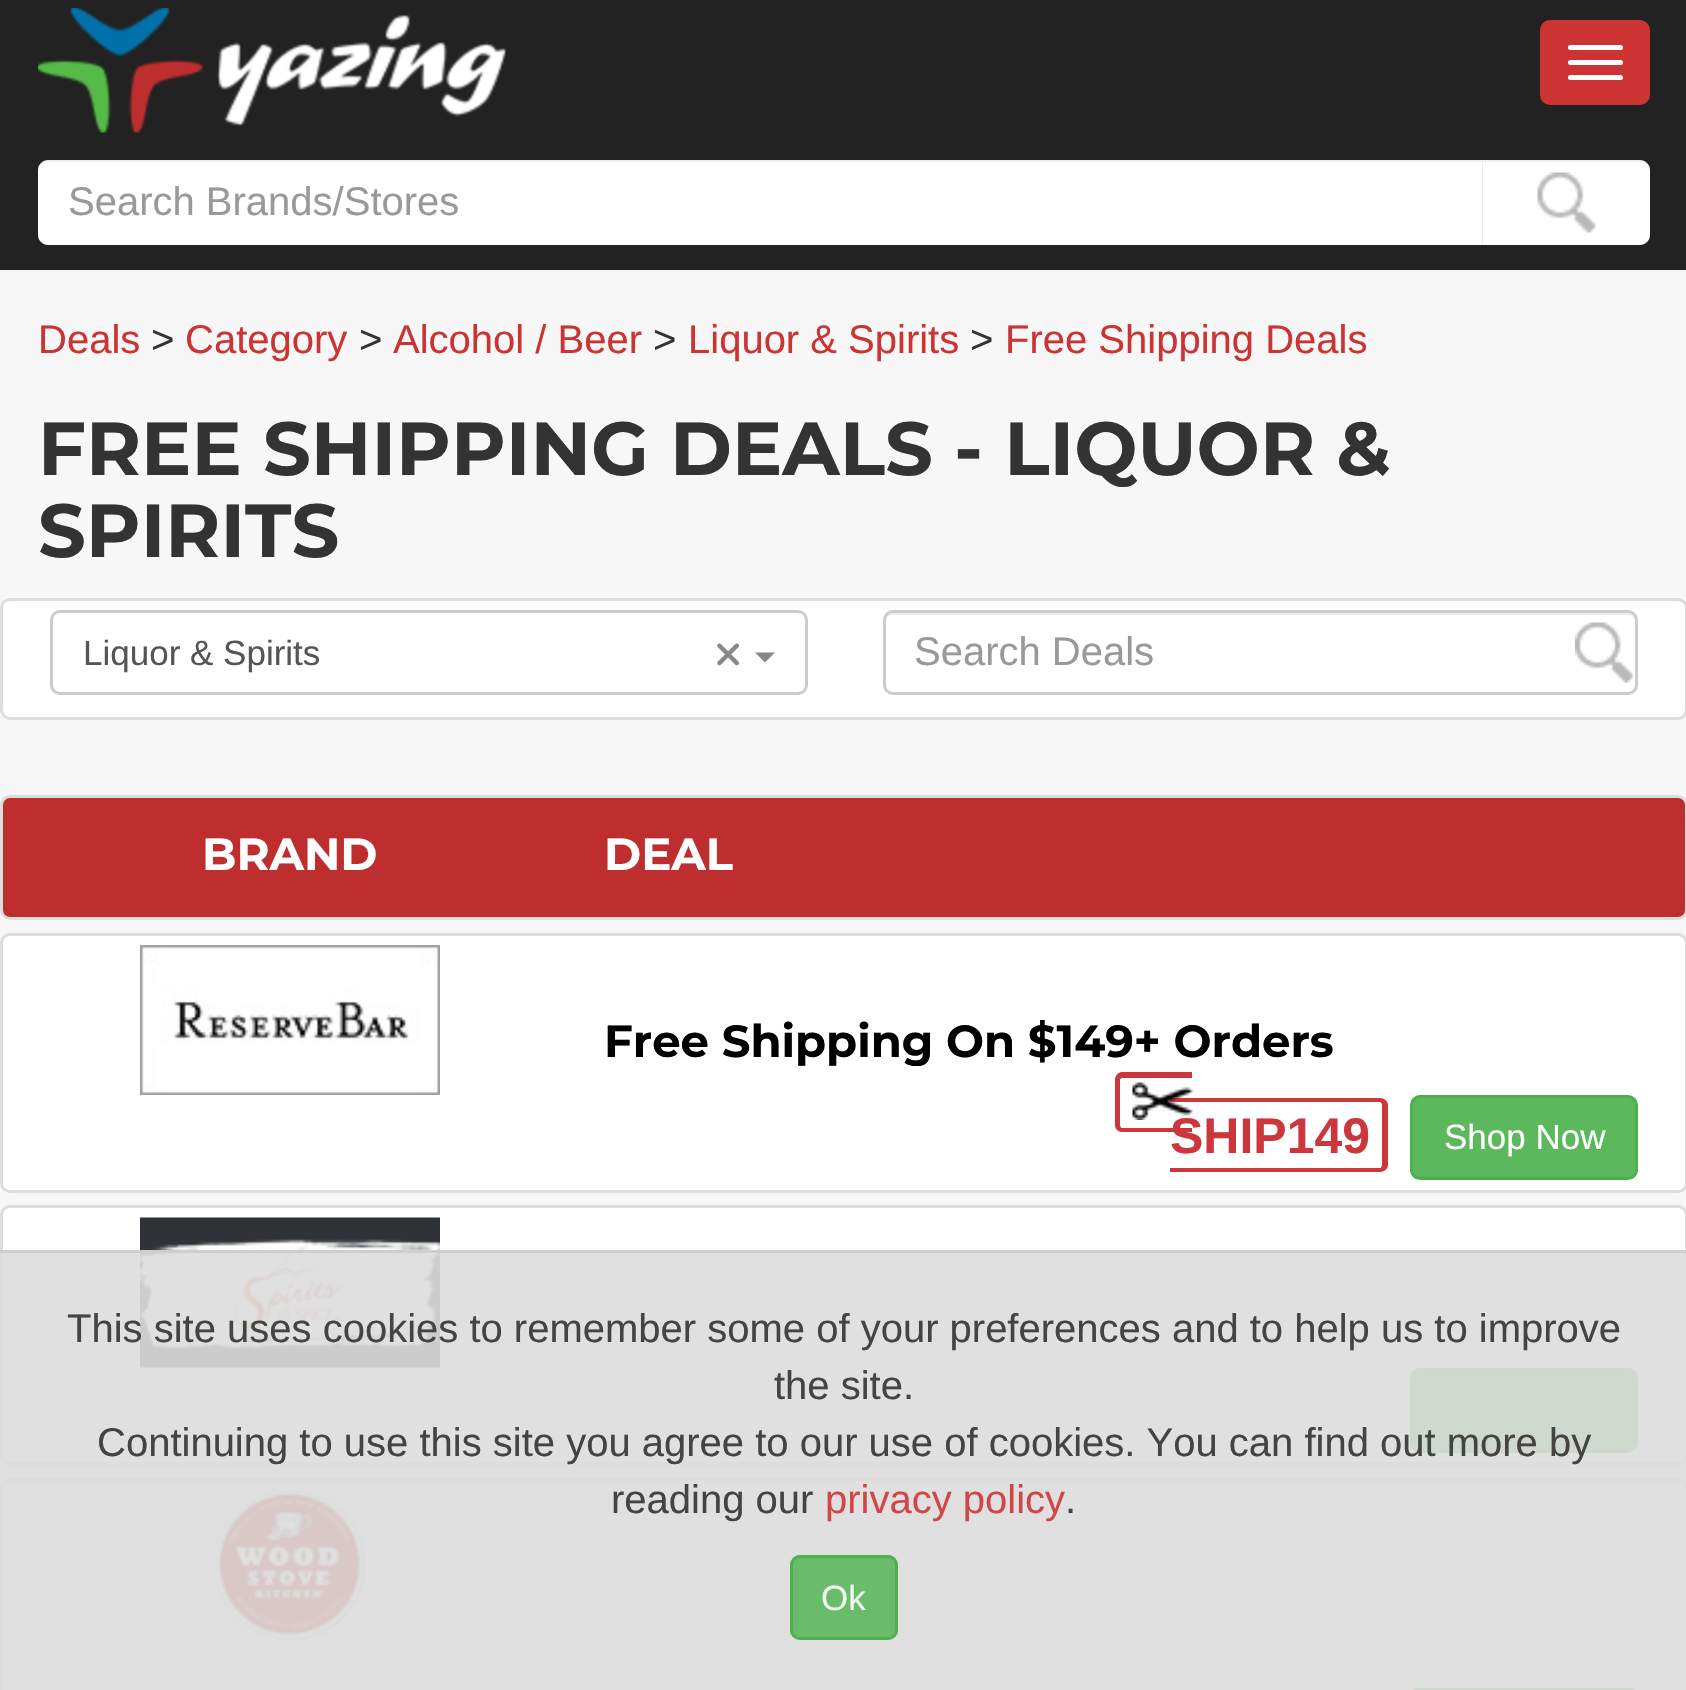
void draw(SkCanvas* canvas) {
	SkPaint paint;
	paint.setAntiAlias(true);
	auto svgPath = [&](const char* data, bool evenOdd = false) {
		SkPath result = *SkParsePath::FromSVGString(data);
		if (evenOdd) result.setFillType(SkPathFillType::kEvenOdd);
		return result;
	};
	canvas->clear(0xfff7f7f7);
	paint.setColor(0xff222222);
	canvas->drawRect(SkRect::MakeXYWH(0, 0, 1686, 270), paint);
	canvas->drawImageRect(SkImages::DeferredFromEncodedData(SkData::MakeFromFileName("img1.png")), SkRect::MakeXYWH(38, 8, 468, 125), SkSamplingOptions());
	paint.setColor(0xffcc3333);
	canvas->drawRoundRect(SkRect::MakeXYWH(1541.5, 21.5, 107, 82), 8.5, 8.5, paint);
	paint.setStroke(true);
	paint.setStrokeWidth(3);
	canvas->drawRoundRect(SkRect::MakeXYWH(1541.5, 21.5, 107, 82), 8.5, 8.5, paint);
	paint.setStroke(false);
	paint.setColor(0xffffffff);
	canvas->drawRoundRect(SkRect::MakeXYWH(1568, 45, 55, 5), 2.5, 2.5, paint);
	canvas->drawRoundRect(SkRect::MakeXYWH(1568, 60, 55, 5), 2.5, 2.5, paint);
	canvas->drawRoundRect(SkRect::MakeXYWH(1568, 75, 55, 5), 2.5, 2.5, paint);
	canvas->drawPath(svgPath("M48 160H1483V245H48C42.5 245 38 240.5 38 235V170C38 164.5 42.5 160 48 160Z"), paint);
	paint.setColor(0x12000000);
	canvas->drawPath(svgPath("M48 162H1482V245H1483V160H48C41 160 38 166 38 172C38 167 42 162 48 162Z"), paint);
	SkFont f1(fontMgr->matchFamilyStyle("Liberation Sans", SkFontStyle::Normal()), 40);
	f1.setSubpixel(true);
	paint.setColor(0xff999999);
	canvas->drawString("Search Brands/Stores", 68, 215, f1, paint);
	paint.setColor(0xffffffff);
	canvas->drawPath(svgPath("M1483 160H1640C1645.5 160 1650 164.5 1650 170V235C1650 240.5 1645.5 245 1640 245H1483Z"), paint);
	canvas->drawImageRect(SkImages::DeferredFromEncodedData(SkData::MakeFromFileName("img2.png")), SkRect::MakeXYWH(1537, 172, 60, 61), SkSamplingOptions());
	paint.setColor(0x12000000);
	canvas->drawPath(svgPath("M1483 160V162H1640C1646 162 1650 167 1650 172C1650 166 1647 160 1640 160Z"), paint);
	paint.setColor(0xffcc3333);
	canvas->drawString("Deals", 38, 353, f1, paint);
	paint.setColor(0xff333333);
	canvas->drawString(">", 151, 353, f1, paint);
	paint.setColor(0xffcc3333);
	canvas->drawString("Category", 185, 353, f1, paint);
	paint.setColor(0xff333333);
	canvas->drawString(">", 359, 353, f1, paint);
	paint.setColor(0xffcc3333);
	canvas->drawString("Alcohol / Beer", 393, 353, f1, paint);
	paint.setColor(0xff333333);
	canvas->drawString(">", 653, 353, f1, paint);
	paint.setColor(0xffcc3333);
	canvas->drawString("Liquor & Spirits", 688, 353, f1, paint);
	paint.setColor(0xff333333);
	canvas->drawString(">", 970, 353, f1, paint);
	paint.setColor(0xffcc3333);
	canvas->drawString("Free Shipping Deals", 1005, 353, f1, paint);
	SkFont f2(fontMgr->matchFamilyStyle("Montserrat", SkFontStyle::Bold()), 75);
	f2.setSubpixel(true);
	paint.setColor(0xff333333);
	canvas->drawString("FREE SHIPPING DEALS - LIQUOR &", 38, 475, f2, paint);
	canvas->drawString("SPIRITS", 38, 557, f2, paint);
	paint.setColor(0xffffffff);
	canvas->drawRoundRect(SkRect::MakeXYWH(1.5, 599.5, 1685, 119), 8.5, 8.5, paint);
	paint.setStroke(true);
	paint.setColor(0xffdddddd);
	canvas->drawRoundRect(SkRect::MakeXYWH(1.5, 599.5, 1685, 119), 8.5, 8.5, paint);
	paint.setColor(0xffcccccc);
	canvas->drawRoundRect(SkRect::MakeXYWH(51.5, 611.5, 755, 82), 8.5, 8.5, paint);
	SkFont f3(fontMgr->matchFamilyStyle("Liberation Sans", SkFontStyle::Normal()), 35);
	f3.setSubpixel(true);
	paint.setStroke(false);
	paint.setColor(0xff555555);
	canvas->drawString("Liquor & Spirits", 83, 665, f3, paint);
	canvas->drawImageRect(SkImages::DeferredFromEncodedData(SkData::MakeFromFileName("img3.png")), SkRect::MakeXYWH(717, 643, 22, 23), SkSamplingOptions());
	paint.setColor(0xff888888);
	canvas->drawPath(svgPath("M755 652.5H775L765 662.5Z"), paint);
	canvas->drawImageRect(SkImages::DeferredFromEncodedData(SkData::MakeFromFileName("img4.png")), SkRect::MakeXYWH(1575, 622, 59, 61), SkSamplingOptions());
	paint.setColor(0xffececec);
	canvas->drawPath(svgPath("M892 615H1628C1632 615 1635 618 1635 622C1635 617 1632 613 1627 613H893C888 613 885 617 885 622C885 618 888 615 892 615Z"), paint);
	paint.setStroke(true);
	paint.setColor(0xffcccccc);
	canvas->drawRoundRect(SkRect::MakeXYWH(884.5, 611.5, 752, 82), 8.5, 8.5, paint);
	paint.setStroke(false);
	paint.setColor(0xff999999);
	canvas->drawString("Search Deals", 914, 665, f1, paint);
	paint.setColor(0xffbf2e2f);
	canvas->drawRoundRect(SkRect::MakeXYWH(1.5, 796.5, 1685, 122), 8.5, 8.5, paint);
	paint.setStroke(true);
	paint.setColor(0xffdddddd);
	canvas->drawRoundRect(SkRect::MakeXYWH(1.5, 796.5, 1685, 122), 8.5, 8.5, paint);
	SkFont f4(fontMgr->matchFamilyStyle("Montserrat", SkFontStyle::Bold()), 45);
	f4.setSubpixel(true);
	paint.setStroke(false);
	paint.setColor(0xffffffff);
	canvas->drawString("BRAND", 202, 870, f4, paint);
	canvas->drawString("DEAL", 604, 870, f4, paint);
	canvas->drawRoundRect(SkRect::MakeXYWH(1.5, 934.5, 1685, 257), 8.5, 8.5, paint);
	paint.setStroke(true);
	paint.setColor(0xffdddddd);
	canvas->drawRoundRect(SkRect::MakeXYWH(1.5, 934.5, 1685, 257), 8.5, 8.5, paint);
	canvas->drawImageRect(SkImages::DeferredFromEncodedData(SkData::MakeFromFileName("img5.png")), SkRect::MakeXYWH(140, 945, 300, 150), SkSamplingOptions());
	paint.setStroke(false);
	paint.setColor(0xff000000);
	canvas->drawString("Free Shipping On $149+ Orders", 604, 1057, f4, paint);
	paint.setColor(0xffcc373d);
	canvas->drawPath(svgPath("M1122 1072H1192V1132H1122C1118 1132 1115 1129 1115 1125V1080C1115 1076 1118 1072 1122 1072ZM1122 1078H1192V1128H1122C1121 1128 1120 1126 1120 1125V1080C1120 1079 1121 1078 1122 1078Z", true), paint);
	canvas->drawPath(svgPath("M1170 1098H1380C1384 1098 1388 1101 1388 1105V1165C1388 1169 1384 1172 1380 1172H1170ZM1170 1102H1380C1381 1102 1382 1104 1382 1105V1165C1382 1166 1381 1168 1380 1168H1170Z", true), paint);
	SkFont f5(fontMgr->matchFamilyStyle("Liberation Sans", SkFontStyle::Bold()), 50);
	f5.setSubpixel(true);
	canvas->drawString("SHIP149", 1170, 1153, f5, paint);
	canvas->drawImageRect(SkImages::DeferredFromEncodedData(SkData::MakeFromFileName("img6.png")), SkRect::MakeXYWH(1132, 1082, 61, 38), SkSamplingOptions());
	paint.setColor(0xff5cb85c);
	canvas->drawRoundRect(SkRect::MakeXYWH(1411.5, 1096.5, 225, 82), 8.5, 8.5, paint);
	paint.setStroke(true);
	paint.setColor(0xff4cae4c);
	canvas->drawRoundRect(SkRect::MakeXYWH(1411.5, 1096.5, 225, 82), 8.5, 8.5, paint);
	paint.setStroke(false);
	paint.setColor(0xffffffff);
	canvas->drawString("Shop Now", 1444, 1149, f3, paint);
	canvas->drawRoundRect(SkRect::MakeXYWH(1.5, 1206.5, 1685, 257), 8.5, 8.5, paint);
	paint.setStroke(true);
	paint.setColor(0xffdddddd);
	canvas->drawRoundRect(SkRect::MakeXYWH(1.5, 1206.5, 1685, 257), 8.5, 8.5, paint);
	canvas->drawImageRect(SkImages::DeferredFromEncodedData(SkData::MakeFromFileName("img7.png")), SkRect::MakeXYWH(140, 1217, 300, 151), SkSamplingOptions());
	paint.setStroke(false);
	paint.setColor(0xff5cb85c);
	canvas->drawRoundRect(SkRect::MakeXYWH(1411.5, 1369.5, 225, 82), 8.5, 8.5, paint);
	paint.setStroke(true);
	paint.setColor(0xff4cae4c);
	canvas->drawRoundRect(SkRect::MakeXYWH(1411.5, 1369.5, 225, 82), 8.5, 8.5, paint);
	paint.setStroke(false);
	paint.setColor(0xffffffff);
	canvas->drawRoundRect(SkRect::MakeXYWH(1.5, 1479.5, 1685, 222), 8.5, 8.5, paint);
	paint.setStroke(true);
	paint.setColor(0xffdddddd);
	canvas->drawRoundRect(SkRect::MakeXYWH(1.5, 1479.5, 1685, 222), 8.5, 8.5, paint);
	canvas->drawImageRect(SkImages::DeferredFromEncodedData(SkData::MakeFromFileName("img8.png")), SkRect::MakeXYWH(214, 1490, 152, 150), SkSamplingOptions());
	paint.setColor(0xff4cae4c);
	canvas->drawRoundRect(SkRect::MakeXYWH(1411.5, 1689.5, 225, 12), 8.5, 8.5, paint);
	paint.setStroke(false);
	paint.setColor(0xe6dddddd);
	canvas->drawRect(SkRect::MakeXYWH(0, 1250, 1686, 440), paint);
	paint.setColor(0xe6cccccc);
	canvas->drawRect(SkRect::MakeXYWH(0, 1250, 1686, 3), paint);
	paint.setColor(0xff444444);
	canvas->drawString("This site uses cookies to remember some of your preferences and to help us to improve", 67, 1342, f1, paint);
	canvas->drawString("the site.", 774, 1399, f1, paint);
	canvas->drawString("Continuing to use this site you agree to our use of cookies. You can find out more by", 97, 1456, f1, paint);
	canvas->drawString("reading our", 611, 1513, f1, paint);
	paint.setColor(0xffd14747);
	canvas->drawString("privacy policy", 825, 1513, f1, paint);
	paint.setColor(0xff444444);
	canvas->drawString(".", 1065, 1513, f1, paint);
	paint.setColor(0xe65cb85c);
	canvas->drawRoundRect(SkRect::MakeXYWH(790, 1555, 108, 85), 10, 10, paint);
	paint.setStroke(true);
	paint.setColor(0xe64cae4c);
	canvas->drawRoundRect(SkRect::MakeXYWH(791.5, 1556.5, 105, 82), 8.5, 8.5, paint);
	paint.setStroke(false);
	paint.setColor(0xfff0f8f0);
	canvas->drawString("Ok", 821, 1610, f3, paint);
}
